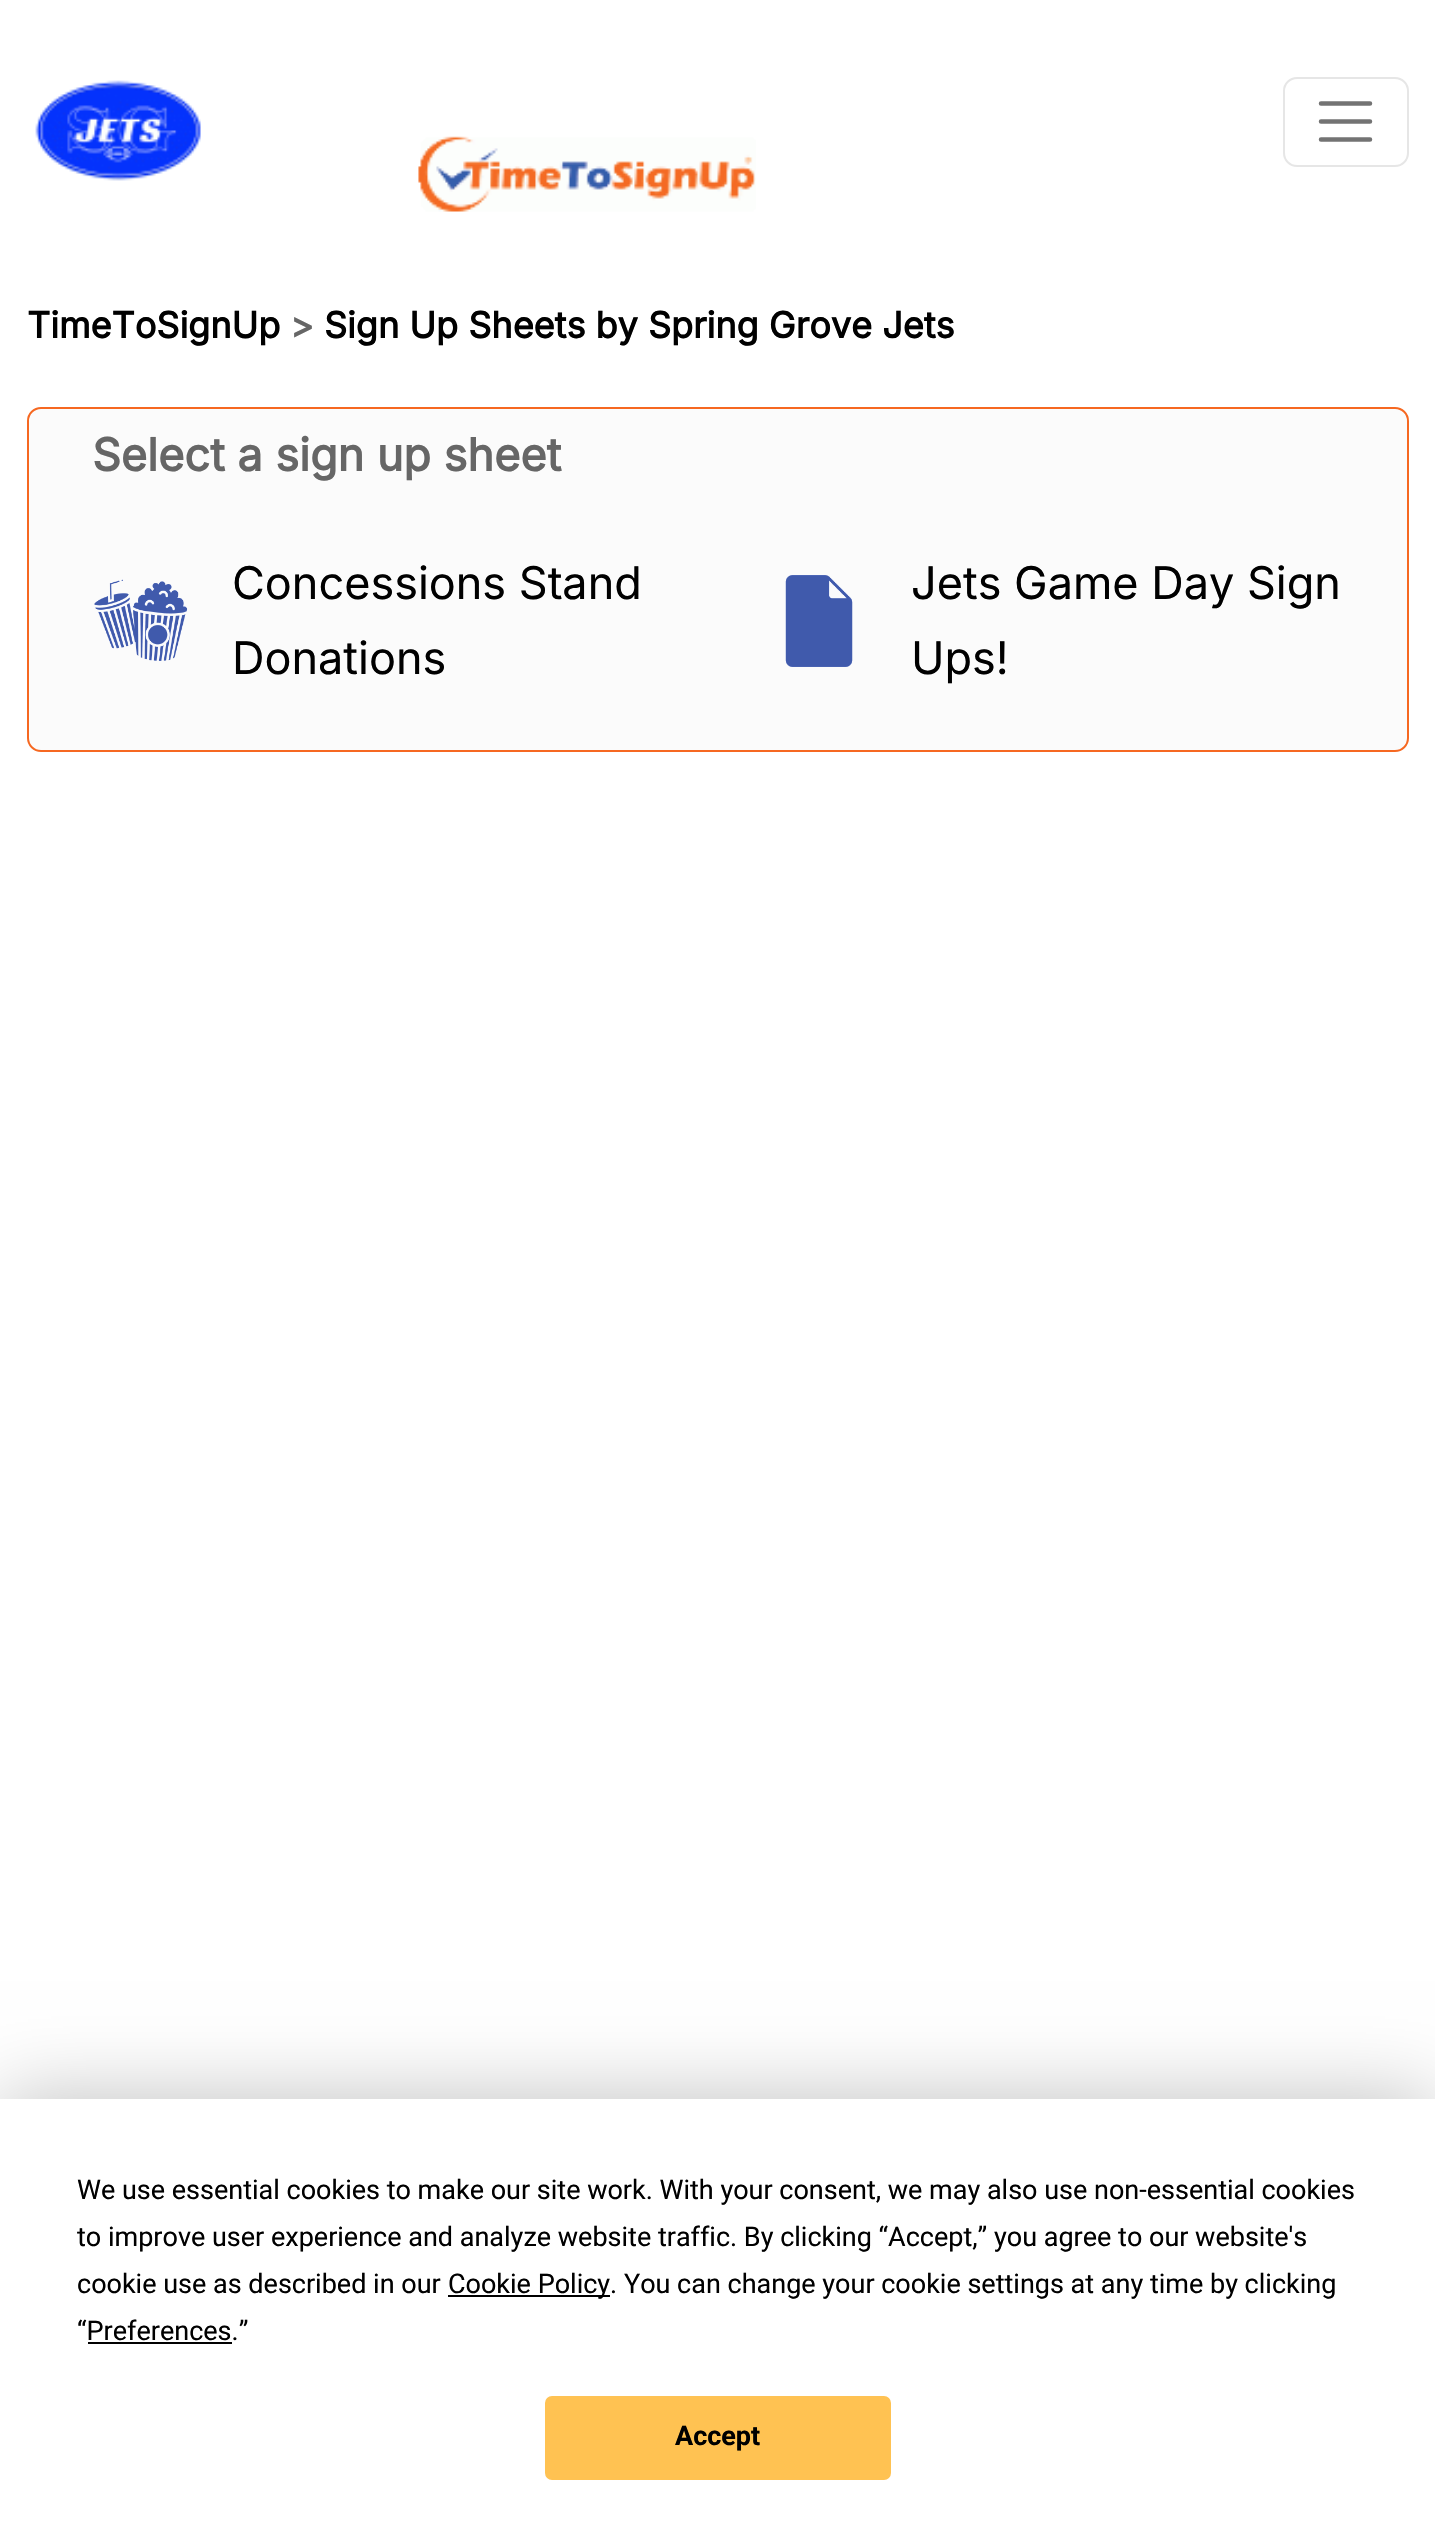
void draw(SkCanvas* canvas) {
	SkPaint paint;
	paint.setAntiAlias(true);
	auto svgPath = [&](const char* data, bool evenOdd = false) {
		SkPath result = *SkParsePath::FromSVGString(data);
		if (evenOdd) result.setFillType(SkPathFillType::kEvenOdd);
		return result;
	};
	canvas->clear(0xffffffff);
	canvas->drawImageRect(SkImages::DeferredFromEncodedData(SkData::MakeFromFileName("img1.png")), SkRect::MakeXYWH(35, 80, 721, 132), SkSamplingOptions());
	paint.setStroke(true);
	paint.setStrokeWidth(2);
	paint.setColor(0xffe6e6e6);
	canvas->drawRoundRect(SkRect::MakeXYWH(1284, 78, 124, 88), 13, 13, paint);
	paint.setStrokeWidth(4.5);
	paint.setStrokeCap(SkPaint::kRound_Cap);
	paint.setColor(0xff737373);
	canvas->drawPath(svgPath("M1321 103.5H1370M1321 121.5H1370M1321 139.5H1370"), paint);
	SkFont f1(fontMgr->matchFamilyStyle("Inter", SkFontStyle::Bold()), 36);
	f1.setSubpixel(true);
	paint.setStroke(false);
	paint.setColor(0xff000000);
	canvas->drawString("TimeToSignUp", 27, 338, f1, paint);
	paint.setColor(0xff666666);
	canvas->drawString(">", 290, 338, f1, paint);
	paint.setColor(0xff000000);
	canvas->drawString("Sign Up Sheets by Spring Grove Jets", 324, 338, f1, paint);
	paint.setColor(0xfffbfbfb);
	canvas->drawRoundRect(SkRect::MakeXYWH(28, 408, 1380, 343), 13, 13, paint);
	paint.setStroke(true);
	paint.setStrokeWidth(2);
	paint.setStrokeCap(SkPaint::kButt_Cap);
	paint.setColor(0xfff66821);
	canvas->drawRoundRect(SkRect::MakeXYWH(28, 408, 1380, 343), 13, 13, paint);
	SkFont f2(fontMgr->matchFamilyStyle("Inter", SkFontStyle::Bold()), 45);
	f2.setSubpixel(true);
	paint.setStroke(false);
	paint.setColor(0xff666666);
	canvas->drawString("Select a sign up sheet", 92, 471, f2, paint);
	canvas->drawImageRect(SkImages::DeferredFromEncodedData(SkData::MakeFromFileName("img2.png")), SkRect::MakeXYWH(94, 579, 94, 82), SkSamplingOptions());
	SkFont f3(fontMgr->matchFamilyStyle("Inter", SkFontStyle::Normal()), 45);
	f3.setSubpixel(true);
	paint.setColor(0xff000000);
	canvas->drawString("Concessions Stand", 232, 599, f3, paint);
	canvas->drawString("Donations", 232, 674, f3, paint);
	canvas->drawImageRect(SkImages::DeferredFromEncodedData(SkData::MakeFromFileName("img3.png")), SkRect::MakeXYWH(785, 575, 68, 92), SkSamplingOptions());
	canvas->drawString("Jets Game Day Sign", 911, 599, f3, paint);
	canvas->drawString("Ups!", 911, 674, f3, paint);
	paint.setColor(0x40000000);
	paint.setMaskFilter(SkMaskFilter::MakeBlur(kNormal_SkBlurStyle, 39.5));
	canvas->drawRect(SkRect::MakeXYWH(0, 2099, 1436, 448), paint);
	paint.setMaskFilter(nullptr);
	paint.setColor(0xffffffff);
	canvas->drawRect(SkRect::MakeXYWH(0, 2099, 1435, 446), paint);
	SkFont f4(fontMgr->matchFamilyStyle("Roboto", SkFontStyle::Normal()), 27);
	f4.setSubpixel(true);
	paint.setColor(0xff000000);
	canvas->drawString("We use essential cookies to make our site work. With your consent, we may also use non-essential cookies", 77, 2199, f4, paint);
	canvas->drawString("to improve user experience and analyze website traffic. By clicking “Accept,” you agree to our website's", 77, 2246, f4, paint);
	canvas->drawString("cookie use as described in our", 77, 2293, f4, paint);
	canvas->drawRect(SkRect::MakeXYWH(448, 2295, 162, 2), paint);
	canvas->drawString("Cookie Policy. You can change your cookie settings at any time by clicking", 448, 2293, f4, paint);
	canvas->drawString("“Preferences.”", 77, 2340, f4, paint);
	canvas->drawRect(SkRect::MakeXYWH(88, 2342, 144, 2), paint);
	paint.setColor(0xffffc252);
	canvas->drawRoundRect(SkRect::MakeXYWH(546, 2397, 344, 82), 6, 6, paint);
	paint.setStroke(true);
	canvas->drawRoundRect(SkRect::MakeXYWH(546, 2397, 344, 82), 6, 6, paint);
	SkFont f5(fontMgr->matchFamilyStyle("Roboto", SkFontStyle::Bold()), 27);
	f5.setSubpixel(true);
	paint.setStroke(false);
	paint.setColor(0xff000000);
	canvas->drawString("Accept", 675, 2445, f5, paint);
}
